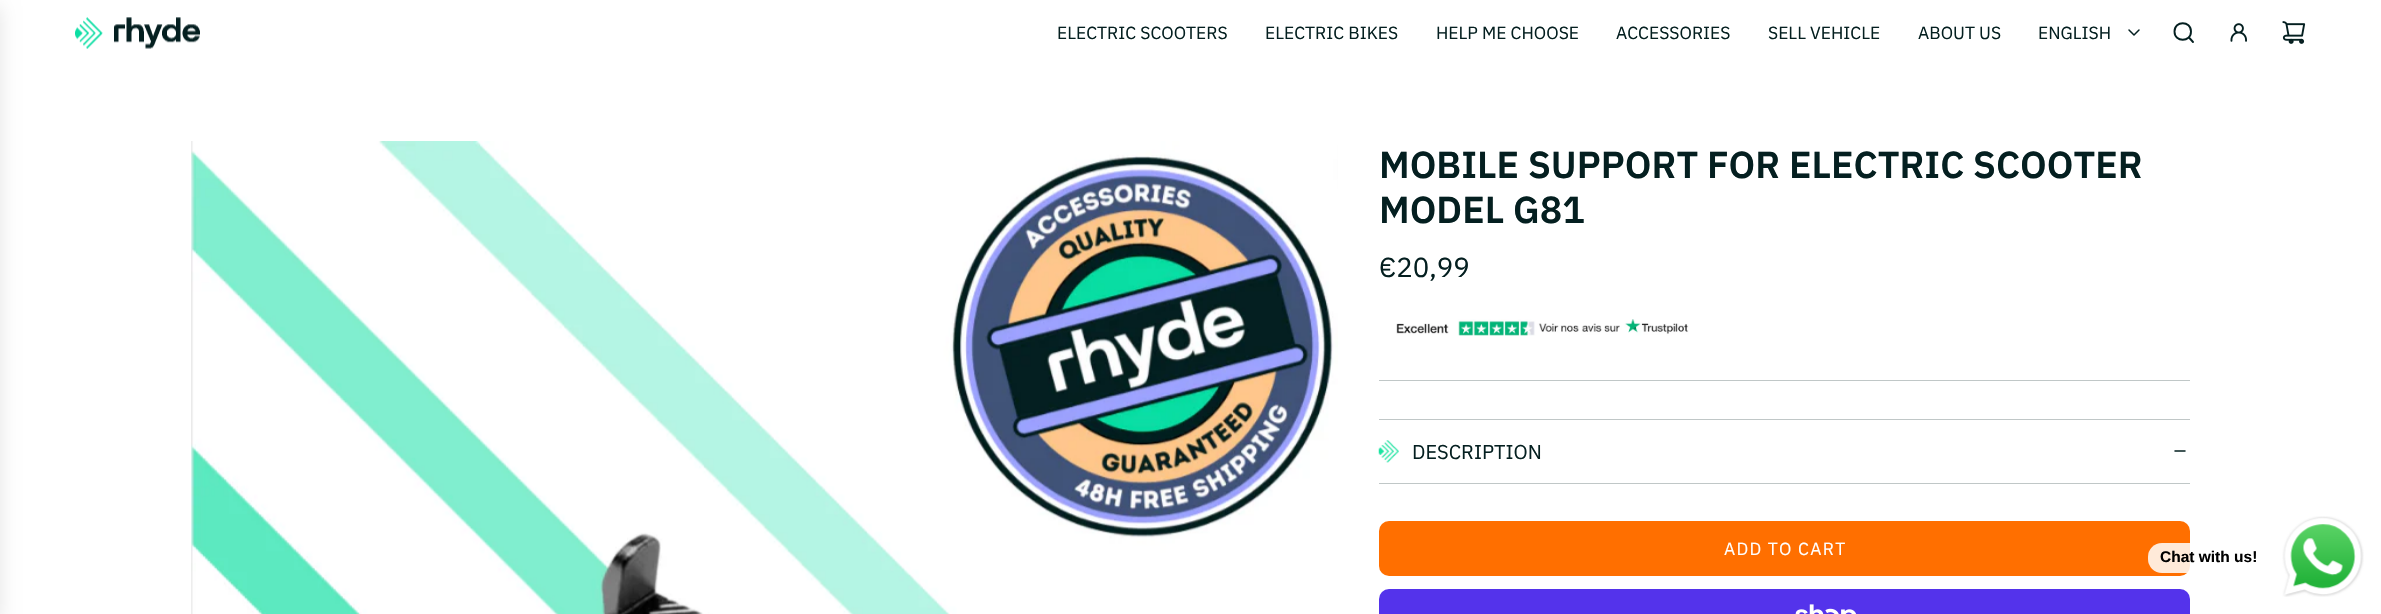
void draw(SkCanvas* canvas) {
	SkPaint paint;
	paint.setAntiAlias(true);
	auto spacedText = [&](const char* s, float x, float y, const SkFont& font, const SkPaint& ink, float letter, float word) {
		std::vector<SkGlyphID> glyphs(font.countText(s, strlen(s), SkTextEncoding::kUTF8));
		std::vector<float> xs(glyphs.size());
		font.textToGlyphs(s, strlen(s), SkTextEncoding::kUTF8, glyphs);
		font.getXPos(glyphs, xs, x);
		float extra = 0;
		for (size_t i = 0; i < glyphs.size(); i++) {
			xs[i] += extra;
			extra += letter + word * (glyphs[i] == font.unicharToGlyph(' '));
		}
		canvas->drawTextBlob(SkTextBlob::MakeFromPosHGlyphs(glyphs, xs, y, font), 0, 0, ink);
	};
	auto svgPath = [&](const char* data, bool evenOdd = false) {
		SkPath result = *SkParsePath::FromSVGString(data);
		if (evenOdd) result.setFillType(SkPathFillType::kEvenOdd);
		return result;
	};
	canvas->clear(0xffffffff);
	paint.setColor(0x1a000000);
	paint.setMaskFilter(SkMaskFilter::MakeBlur(kNormal_SkBlurStyle, 9.5));
	canvas->drawRect(SkRect::MakeXYWH(-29, 6, 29, 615), paint);
	paint.setMaskFilter(nullptr);
	canvas->drawImageRect(SkImages::DeferredFromEncodedData(SkData::MakeFromFileName("img1.png")), SkRect::MakeXYWH(75, 17, 125, 32), SkSamplingOptions());
	SkFont f1(fontMgr->matchFamilyStyle("IBM Plex Sans", SkFontStyle::Normal()), 17.5);
	f1.setSubpixel(true);
	paint.setColor(0xff041f20);
	canvas->drawString("ELECTRIC SCOOTERS", 1057, 39, f1, paint);
	canvas->drawString("ELECTRIC BIKES", 1265, 39, f1, paint);
	canvas->drawString("HELP ME CHOOSE", 1436, 39, f1, paint);
	canvas->drawString("ACCESSORIES", 1616, 39, f1, paint);
	canvas->drawString("SELL VEHICLE", 1768, 39, f1, paint);
	canvas->drawString("ABOUT US", 1918, 39, f1, paint);
	canvas->drawString("ENGLISH", 2038, 39, f1, paint);
	paint.setStroke(true);
	paint.setStrokeWidth(1.5);
	paint.setStrokeCap(SkPaint::kRound_Cap);
	paint.setStrokeJoin(SkPaint::kRound_Join);
	canvas->drawPath(svgPath("M2129 30L2134 35L2139 30"), paint);
	paint.setStrokeWidth(1.9);
	canvas->drawPath(svgPath("M2189 37.5L2193 42M2174.5 31.5C2174.5 42.5 2191 42.5 2191 31.5C2191 20.5 2174.5 20.5 2174.5 31.5Z"), paint);
	canvas->drawImageRect(SkImages::DeferredFromEncodedData(SkData::MakeFromFileName("img2.png")), SkRect::MakeXYWH(2230, 23, 17, 19), SkSamplingOptions());
	canvas->drawImageRect(SkImages::DeferredFromEncodedData(SkData::MakeFromFileName("img3.png")), SkRect::MakeXYWH(2282, 21, 24, 23), SkSamplingOptions());
	canvas->drawImageRect(SkImages::DeferredFromEncodedData(SkData::MakeFromFileName("img4.png")), SkRect::MakeXYWH(191, 141, 1147, 473), SkSamplingOptions());
	SkFont f2(fontMgr->matchFamilyStyle("IBM Plex Sans", SkFontStyle(600, SkFontStyle::kNormal_Width, SkFontStyle::kUpright_Slant)), 37.5);
	f2.setSubpixel(true);
	paint.setStroke(false);
	canvas->drawString("MOBILE SUPPORT FOR ELECTRIC SCOOTER", 1379, 178, f2, paint);
	canvas->drawString("MODEL G81", 1379, 223, f2, paint);
	SkFont f3(fontMgr->matchFamilyStyle("IBM Plex Sans", SkFontStyle::Normal()), 27.5);
	f3.setSubpixel(true);
	canvas->drawString("€20,99", 1379, 277, f3, paint);
	canvas->drawImageRect(SkImages::DeferredFromEncodedData(SkData::MakeFromFileName("img5.png")), SkRect::MakeXYWH(1396, 319, 293, 17), SkSamplingOptions());
	paint.setColor(0xffc0c7c7);
	canvas->drawRect(SkRect::MakeXYWH(1379, 380, 811, 1), paint);
	canvas->drawRect(SkRect::MakeXYWH(1379, 419, 811, 1), paint);
	canvas->drawRect(SkRect::MakeXYWH(1379, 483, 811, 1), paint);
	canvas->drawImageRect(SkImages::DeferredFromEncodedData(SkData::MakeFromFileName("img6.png")), SkRect::MakeXYWH(1378, 440, 21, 23), SkSamplingOptions());
	SkFont f4(fontMgr->matchFamilyStyle("IBM Plex Sans", SkFontStyle::Normal()), 20);
	f4.setSubpixel(true);
	paint.setColor(0xff041f20);
	canvas->drawString("DESCRIPTION", 1412, 459, f4, paint);
	paint.setStroke(true);
	paint.setStrokeWidth(1.5);
	canvas->drawPath(svgPath("M2175 451H2185"), paint);
	paint.setStroke(false);
	paint.setColor(0xffff6f00);
	canvas->drawRoundRect(SkRect::MakeXYWH(1379, 521, 811, 55), 10, 10, paint);
	paint.setColor(0xffffffff);
	spacedText("ADD TO CART", 1724, 555, f1, paint, 1.25, 0);
	paint.setColor(0xff5433eb);
	canvas->drawRoundRect(SkRect::MakeXYWH(1379, 589, 811, 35), 10, 10, paint);
	canvas->drawImageRect(SkImages::DeferredFromEncodedData(SkData::MakeFromFileName("img7.png")), SkRect::MakeXYWH(1795, 604, 62, 10), SkSamplingOptions());
	paint.setColor(0xd9ffffff);
	canvas->drawRoundRect(SkRect::MakeXYWH(2148, 543, 123, 30), 14, 14, paint);
	SkFont f5(fontMgr->matchFamilyStyle("Liberation Sans", SkFontStyle::Bold()), 15.5);
	f5.setSubpixel(true);
	paint.setColor(0xff000000);
	canvas->drawString("Chat with us!", 2160, 562, f5, paint);
	canvas->drawImageRect(SkImages::DeferredFromEncodedData(SkData::MakeFromFileName("img8.png")), SkRect::MakeXYWH(2282, 516, 82, 81), SkSamplingOptions());
}
